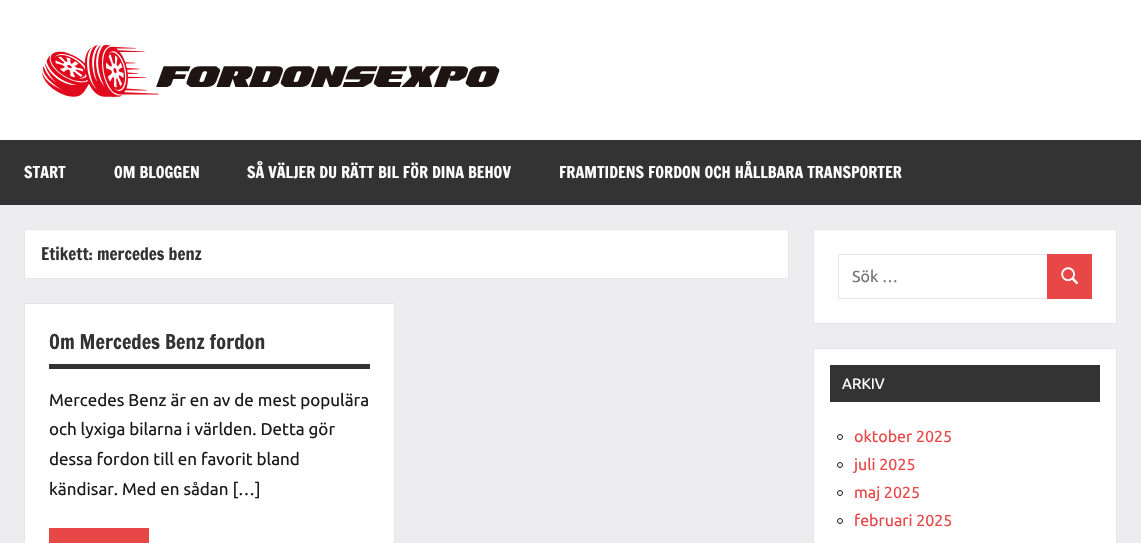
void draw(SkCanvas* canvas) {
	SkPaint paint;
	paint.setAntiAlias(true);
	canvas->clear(0xffededef);
	paint.setColor(0xffffffff);
	canvas->drawRect(SkRect::MakeXYWH(0, 0, 1141, 140), paint);
	canvas->drawImageRect(SkImages::DeferredFromEncodedData(SkData::MakeFromFileName("img1.png")), SkRect::MakeXYWH(42, 45, 458, 52), SkSamplingOptions());
	paint.setColor(0xff333333);
	canvas->drawRect(SkRect::MakeXYWH(0, 140, 1141, 65), paint);
	SkFont f1(fontMgr->matchFamilyStyle("Francois One", SkFontStyle::Normal()), 16);
	f1.setSubpixel(true);
	paint.setColor(0xffffffff);
	canvas->drawString("START", 24, 178, f1, paint);
	canvas->drawString("OM BLOGGEN", 114, 178, f1, paint);
	canvas->drawString("SÅ VÄLJER DU RÄTT BIL FÖR DINA BEHOV", 247, 178, f1, paint);
	canvas->drawString("FRAMTIDENS FORDON OCH HÅLLBARA TRANSPORTER", 559, 178, f1, paint);
	canvas->drawRect(SkRect::MakeXYWH(24.5, 229.5, 764, 49), paint);
	paint.setStroke(true);
	paint.setStrokeWidth(1);
	paint.setColor(0xffe6e6e6);
	canvas->drawRect(SkRect::MakeXYWH(24.5, 229.5, 764, 49), paint);
	SkFont f2(fontMgr->matchFamilyStyle("Francois One", SkFontStyle::Normal()), 17);
	f2.setSubpixel(true);
	paint.setStroke(false);
	paint.setColor(0xff333333);
	canvas->drawString("Etikett: mercedes benz", 41, 260, f2, paint);
	paint.setColor(0xffffffff);
	canvas->drawRect(SkRect::MakeXYWH(24.5, 303.5, 370, 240), paint);
	paint.setStroke(true);
	paint.setColor(0xffe6e6e6);
	canvas->drawRect(SkRect::MakeXYWH(24.5, 303.5, 370, 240), paint);
	paint.setStroke(false);
	paint.setColor(0xff333333);
	canvas->drawRect(SkRect::MakeXYWH(49, 364, 321, 5), paint);
	SkFont f3(fontMgr->matchFamilyStyle("Francois One", SkFontStyle::Normal()), 20);
	f3.setSubpixel(true);
	canvas->drawString("Om Mercedes Benz fordon", 49, 349, f3, paint);
	SkFont f4(fontMgr->matchFamilyStyle("Ubuntu", SkFontStyle::Normal()), 17);
	f4.setSubpixel(true);
	paint.setColor(0xff1a1a1a);
	canvas->drawString("Mercedes Benz är en av de mest populära", 49, 406, f4, paint);
	canvas->drawString("och lyxiga bilarna i världen. Detta gör", 49, 435, f4, paint);
	canvas->drawString("dessa fordon till en favorit bland", 49, 465, f4, paint);
	canvas->drawString("kändisar. Med en sådan […]", 49, 495, f4, paint);
	paint.setColor(0xffe84747);
	canvas->drawRect(SkRect::MakeXYWH(49, 528, 100, 15), paint);
	paint.setColor(0xffffffff);
	canvas->drawRect(SkRect::MakeXYWH(813.5, 229.5, 303, 94), paint);
	paint.setStroke(true);
	paint.setColor(0xffe6e6e6);
	canvas->drawRect(SkRect::MakeXYWH(813.5, 229.5, 303, 94), paint);
	canvas->drawRect(SkRect::MakeXYWH(838.5, 254.5, 209, 44), paint);
	SkFont f5(fontMgr->matchFamilyStyle("Ubuntu", SkFontStyle::Normal()), 16);
	f5.setSubpixel(true);
	paint.setStroke(false);
	paint.setColor(0xff757575);
	canvas->drawString("Sök …", 852, 282, f5, paint);
	paint.setColor(0xffe84747);
	canvas->drawRect(SkRect::MakeXYWH(1047, 254, 45, 45), paint);
	canvas->drawImageRect(SkImages::DeferredFromEncodedData(SkData::MakeFromFileName("img2.png")), SkRect::MakeXYWH(1061, 267, 18, 18), SkSamplingOptions());
	paint.setColor(0xffffffff);
	canvas->drawRect(SkRect::MakeXYWH(813.5, 348.5, 303, 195), paint);
	paint.setStroke(true);
	paint.setColor(0xffe6e6e6);
	canvas->drawRect(SkRect::MakeXYWH(813.5, 348.5, 303, 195), paint);
	paint.setStroke(false);
	paint.setColor(0xff333333);
	canvas->drawRect(SkRect::MakeXYWH(830, 365, 270, 37), paint);
	SkFont f6(fontMgr->matchFamilyStyle("Ubuntu", SkFontStyle::Normal()), 15);
	f6.setSubpixel(true);
	paint.setColor(0xffffffff);
	canvas->drawString("ARKIV", 842, 389, f6, paint);
	paint.setStroke(true);
	paint.setColor(0xff1a1a1a);
	canvas->drawCircle(840, 437, 2.5, paint);
	paint.setStroke(false);
	paint.setColor(0xffe84747);
	canvas->drawString("oktober 2025", 854, 442, f5, paint);
	paint.setStroke(true);
	paint.setColor(0xff1a1a1a);
	canvas->drawCircle(840, 465, 2.5, paint);
	paint.setStroke(false);
	paint.setColor(0xffe84747);
	canvas->drawString("juli 2025", 854, 470, f5, paint);
	paint.setStroke(true);
	paint.setColor(0xff1a1a1a);
	canvas->drawCircle(840, 493, 2.5, paint);
	paint.setStroke(false);
	paint.setColor(0xffe84747);
	canvas->drawString("maj 2025", 854, 498, f5, paint);
	paint.setStroke(true);
	paint.setColor(0xff1a1a1a);
	canvas->drawCircle(840, 521, 2.5, paint);
	paint.setStroke(false);
	paint.setColor(0xffe84747);
	canvas->drawString("februari 2025", 854, 526, f5, paint);
}
